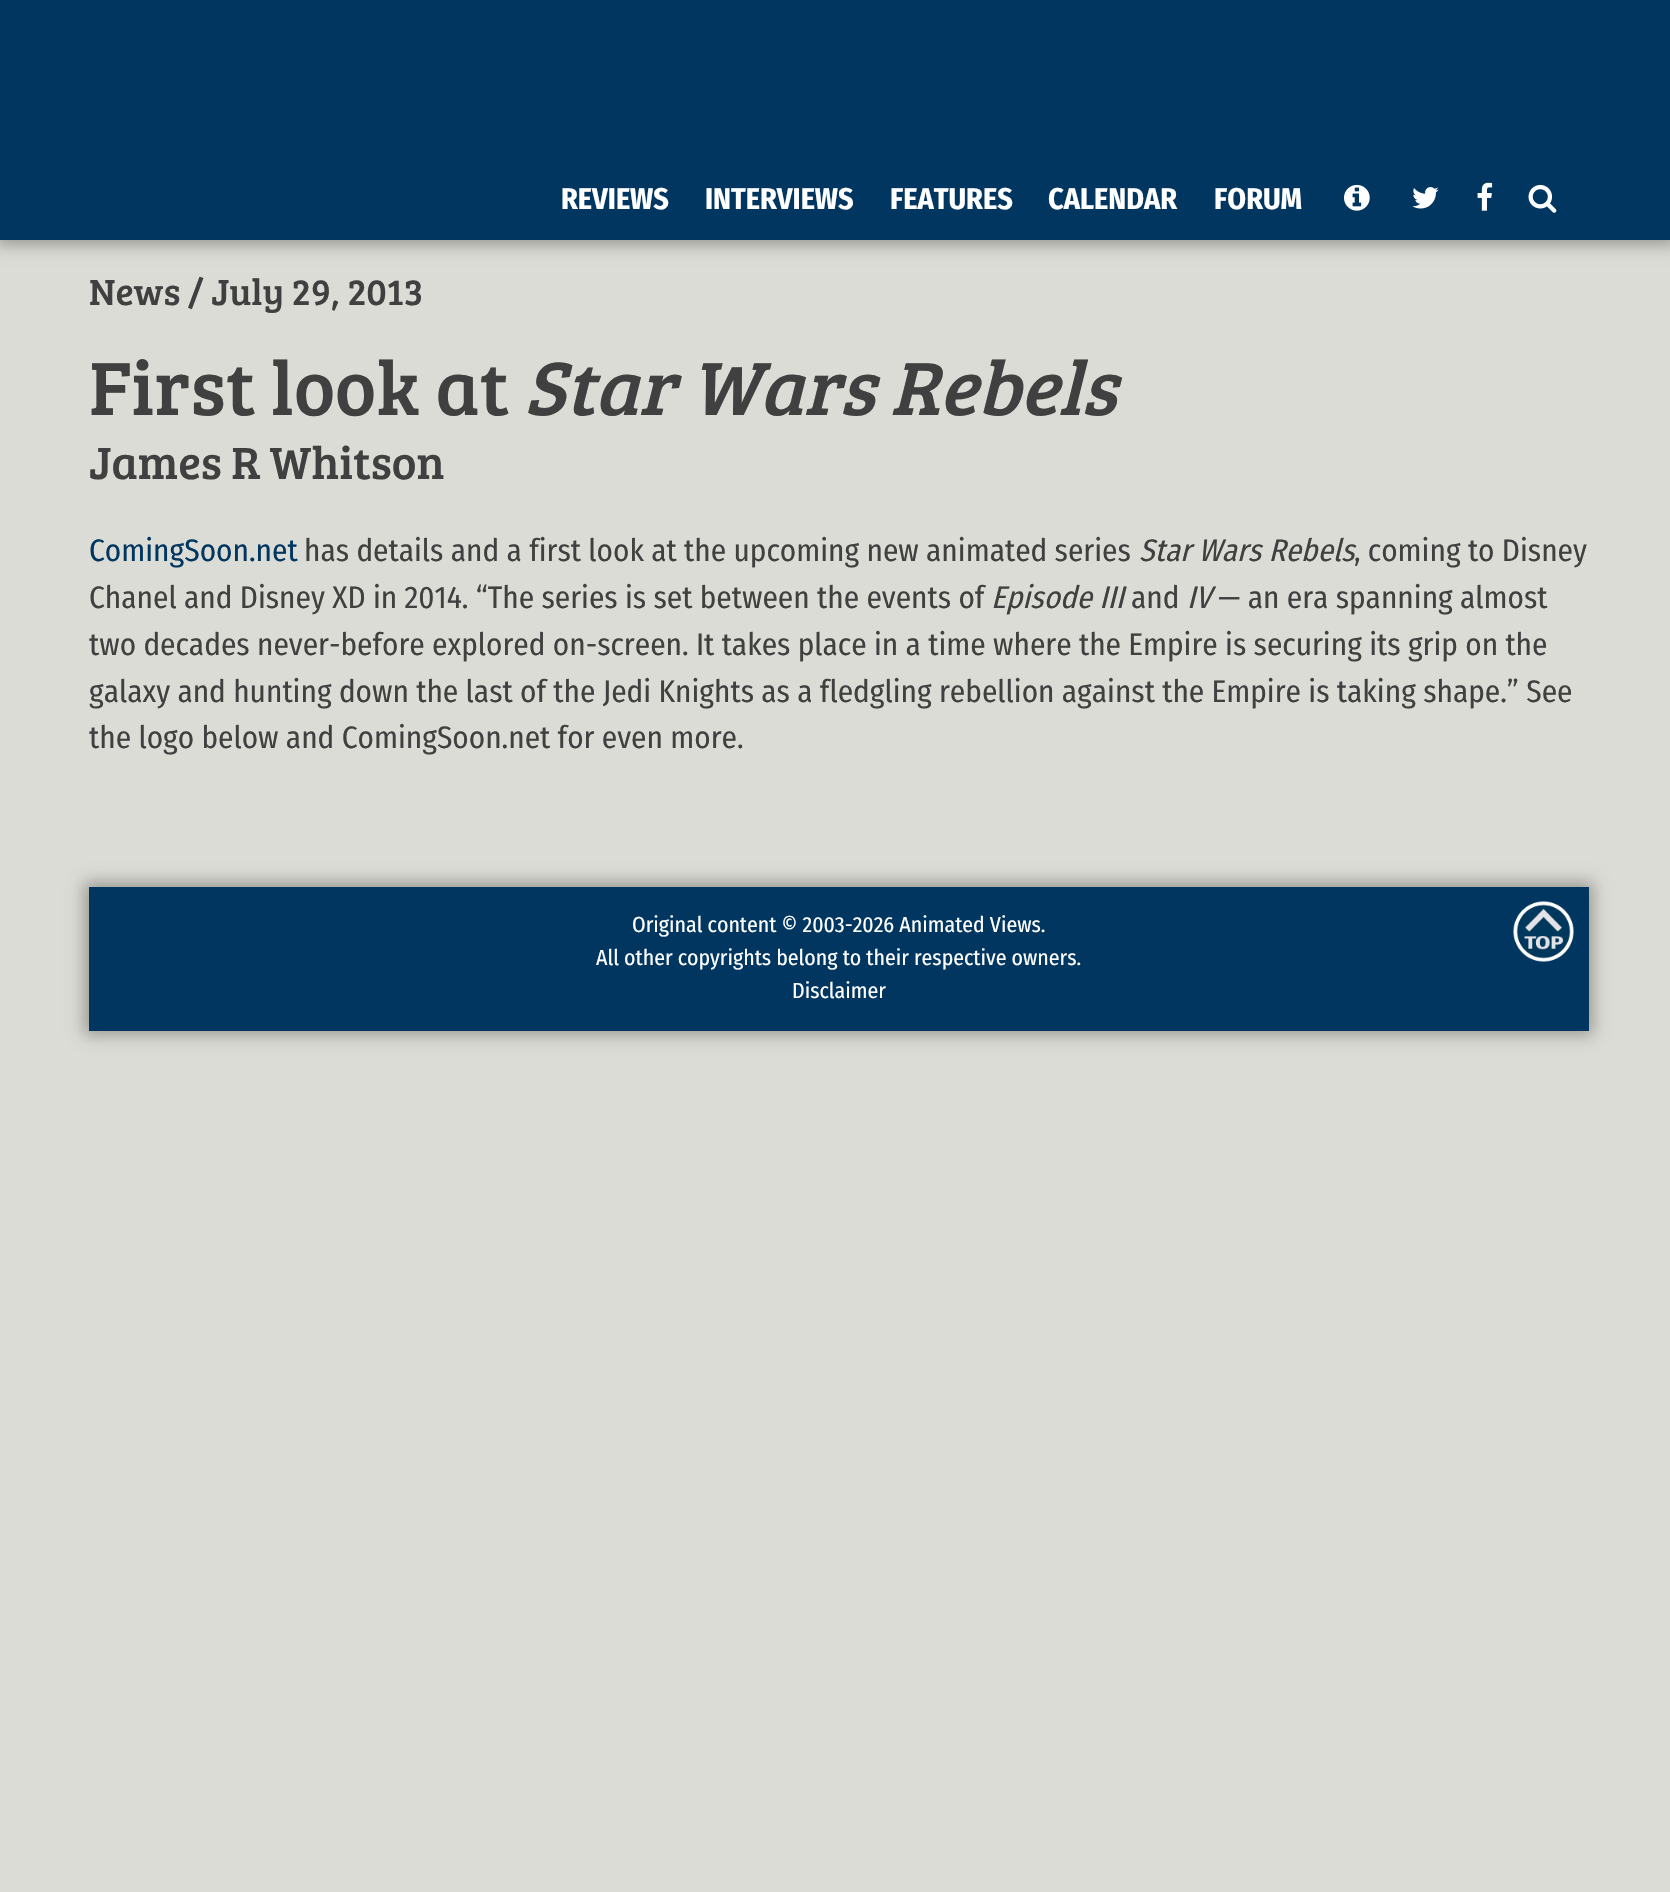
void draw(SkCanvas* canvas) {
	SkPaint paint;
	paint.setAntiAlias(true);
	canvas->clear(0xffdcdcd6);
	paint.setColor(0x4d000000);
	paint.setMaskFilter(SkMaskFilter::MakeBlur(kNormal_SkBlurStyle, 7.5));
	canvas->drawRect(SkRect::MakeXYWH(-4, -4, 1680, 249), paint);
	paint.setMaskFilter(nullptr);
	paint.setColor(0xff00365f);
	canvas->drawRect(SkRect::MakeXYWH(0, 0, 1670, 240), paint);
	SkFont f1(fontMgr->matchFamilyStyle("Fira Sans Condensed", SkFontStyle::Bold()), 30);
	f1.setSubpixel(true);
	paint.setColor(0xffffffff);
	canvas->drawString("REVIEWS", 561, 209, f1, paint);
	canvas->drawString("INTERVIEWS", 705, 209, f1, paint);
	canvas->drawString("FEATURES", 890, 209, f1, paint);
	canvas->drawString("CALENDAR", 1048, 209, f1, paint);
	canvas->drawString("FORUM", 1214, 209, f1, paint);
	canvas->drawImageRect(SkImages::DeferredFromEncodedData(SkData::MakeFromFileName("img1.png")), SkRect::MakeXYWH(1344, 184, 26, 27), SkSamplingOptions());
	canvas->drawImageRect(SkImages::DeferredFromEncodedData(SkData::MakeFromFileName("img2.png")), SkRect::MakeXYWH(1412, 187, 27, 22), SkSamplingOptions());
	canvas->drawImageRect(SkImages::DeferredFromEncodedData(SkData::MakeFromFileName("img3.png")), SkRect::MakeXYWH(1477, 182, 16, 29), SkSamplingOptions());
	canvas->drawImageRect(SkImages::DeferredFromEncodedData(SkData::MakeFromFileName("img4.png")), SkRect::MakeXYWH(1528, 184, 29, 29), SkSamplingOptions());
	SkFont f2(fontMgr->matchFamilyStyle("Bree Serif", SkFontStyle::Normal()), 37.5);
	f2.setSubpixel(true);
	paint.setColor(0xff404040);
	canvas->drawString("News / July 29, 2013", 89, 305, f2, paint);
	SkFont f3(fontMgr->matchFamilyStyle("Bree Serif", SkFontStyle::Normal()), 78);
	f3.setSubpixel(true);
	canvas->drawString("First look at", 89, 415, f3, paint);
	SkFont f4(fontMgr->matchFamilyStyle("Bree Serif", SkFontStyle::Italic()), 78);
	f4.setSubpixel(true);
	canvas->drawString("Star Wars Rebels", 524, 415, f4, paint);
	SkFont f5(fontMgr->matchFamilyStyle("Bree Serif", SkFontStyle::Normal()), 46.75);
	f5.setSubpixel(true);
	canvas->drawString("James R Whitson", 89, 479, f5, paint);
	SkFont f6(fontMgr->matchFamilyStyle("Fira Sans Condensed", SkFontStyle::Normal()), 31.2);
	f6.setSubpixel(true);
	paint.setColor(0xff00365f);
	canvas->drawString("ComingSoon.net", 89, 561, f6, paint);
	paint.setColor(0xff404040);
	canvas->drawString("has details and a first look at the upcoming new animated series", 304, 561, f6, paint);
	SkFont f7(fontMgr->matchFamilyStyle("Fira Sans Condensed", SkFontStyle::Italic()), 31.2);
	f7.setSubpixel(true);
	canvas->drawString("Star Wars Rebels", 1139, 561, f7, paint);
	canvas->drawString(", coming to Disney", 1354, 561, f6, paint);
	canvas->drawString("Chanel and Disney XD in 2014. “The series is set between the events of", 89, 608, f6, paint);
	canvas->drawString("Episode III", 991, 608, f7, paint);
	canvas->drawString("and", 1131, 608, f6, paint);
	canvas->drawString("IV", 1187, 608, f7, paint);
	canvas->drawString("— an era spanning almost", 1218, 608, f6, paint);
	canvas->drawString("two decades never-before explored on-screen. It takes place in a time where the Empire is securing its grip on the", 89, 655, f6, paint);
	canvas->drawString("galaxy and hunting down the last of the Jedi Knights as a fledgling rebellion against the Empire is taking shape.” See", 89, 702, f6, paint);
	canvas->drawString("the logo below and ComingSoon.net for even more.", 89, 748, f6, paint);
	paint.setColor(0x4d000000);
	paint.setMaskFilter(SkMaskFilter::MakeBlur(kNormal_SkBlurStyle, 7.5));
	canvas->drawRect(SkRect::MakeXYWH(84, 882, 1509, 153), paint);
	paint.setMaskFilter(nullptr);
	paint.setColor(0xff00365f);
	canvas->drawRect(SkRect::MakeXYWH(89, 887, 1500, 144), paint);
	SkFont f8(fontMgr->matchFamilyStyle("Fira Sans Condensed", SkFontStyle::Normal()), 21.8);
	f8.setSubpixel(true);
	paint.setColor(0xffffffff);
	canvas->drawString("Original content © 2003-2026 Animated Views.", 632, 932, f8, paint);
	canvas->drawImageRect(SkImages::DeferredFromEncodedData(SkData::MakeFromFileName("img5.png")), SkRect::MakeXYWH(1513, 901, 61, 61), SkSamplingOptions());
	canvas->drawString("All other copyrights belong to their respective owners.", 596, 965, f8, paint);
	canvas->drawString("Disclaimer", 792, 998, f8, paint);
}
